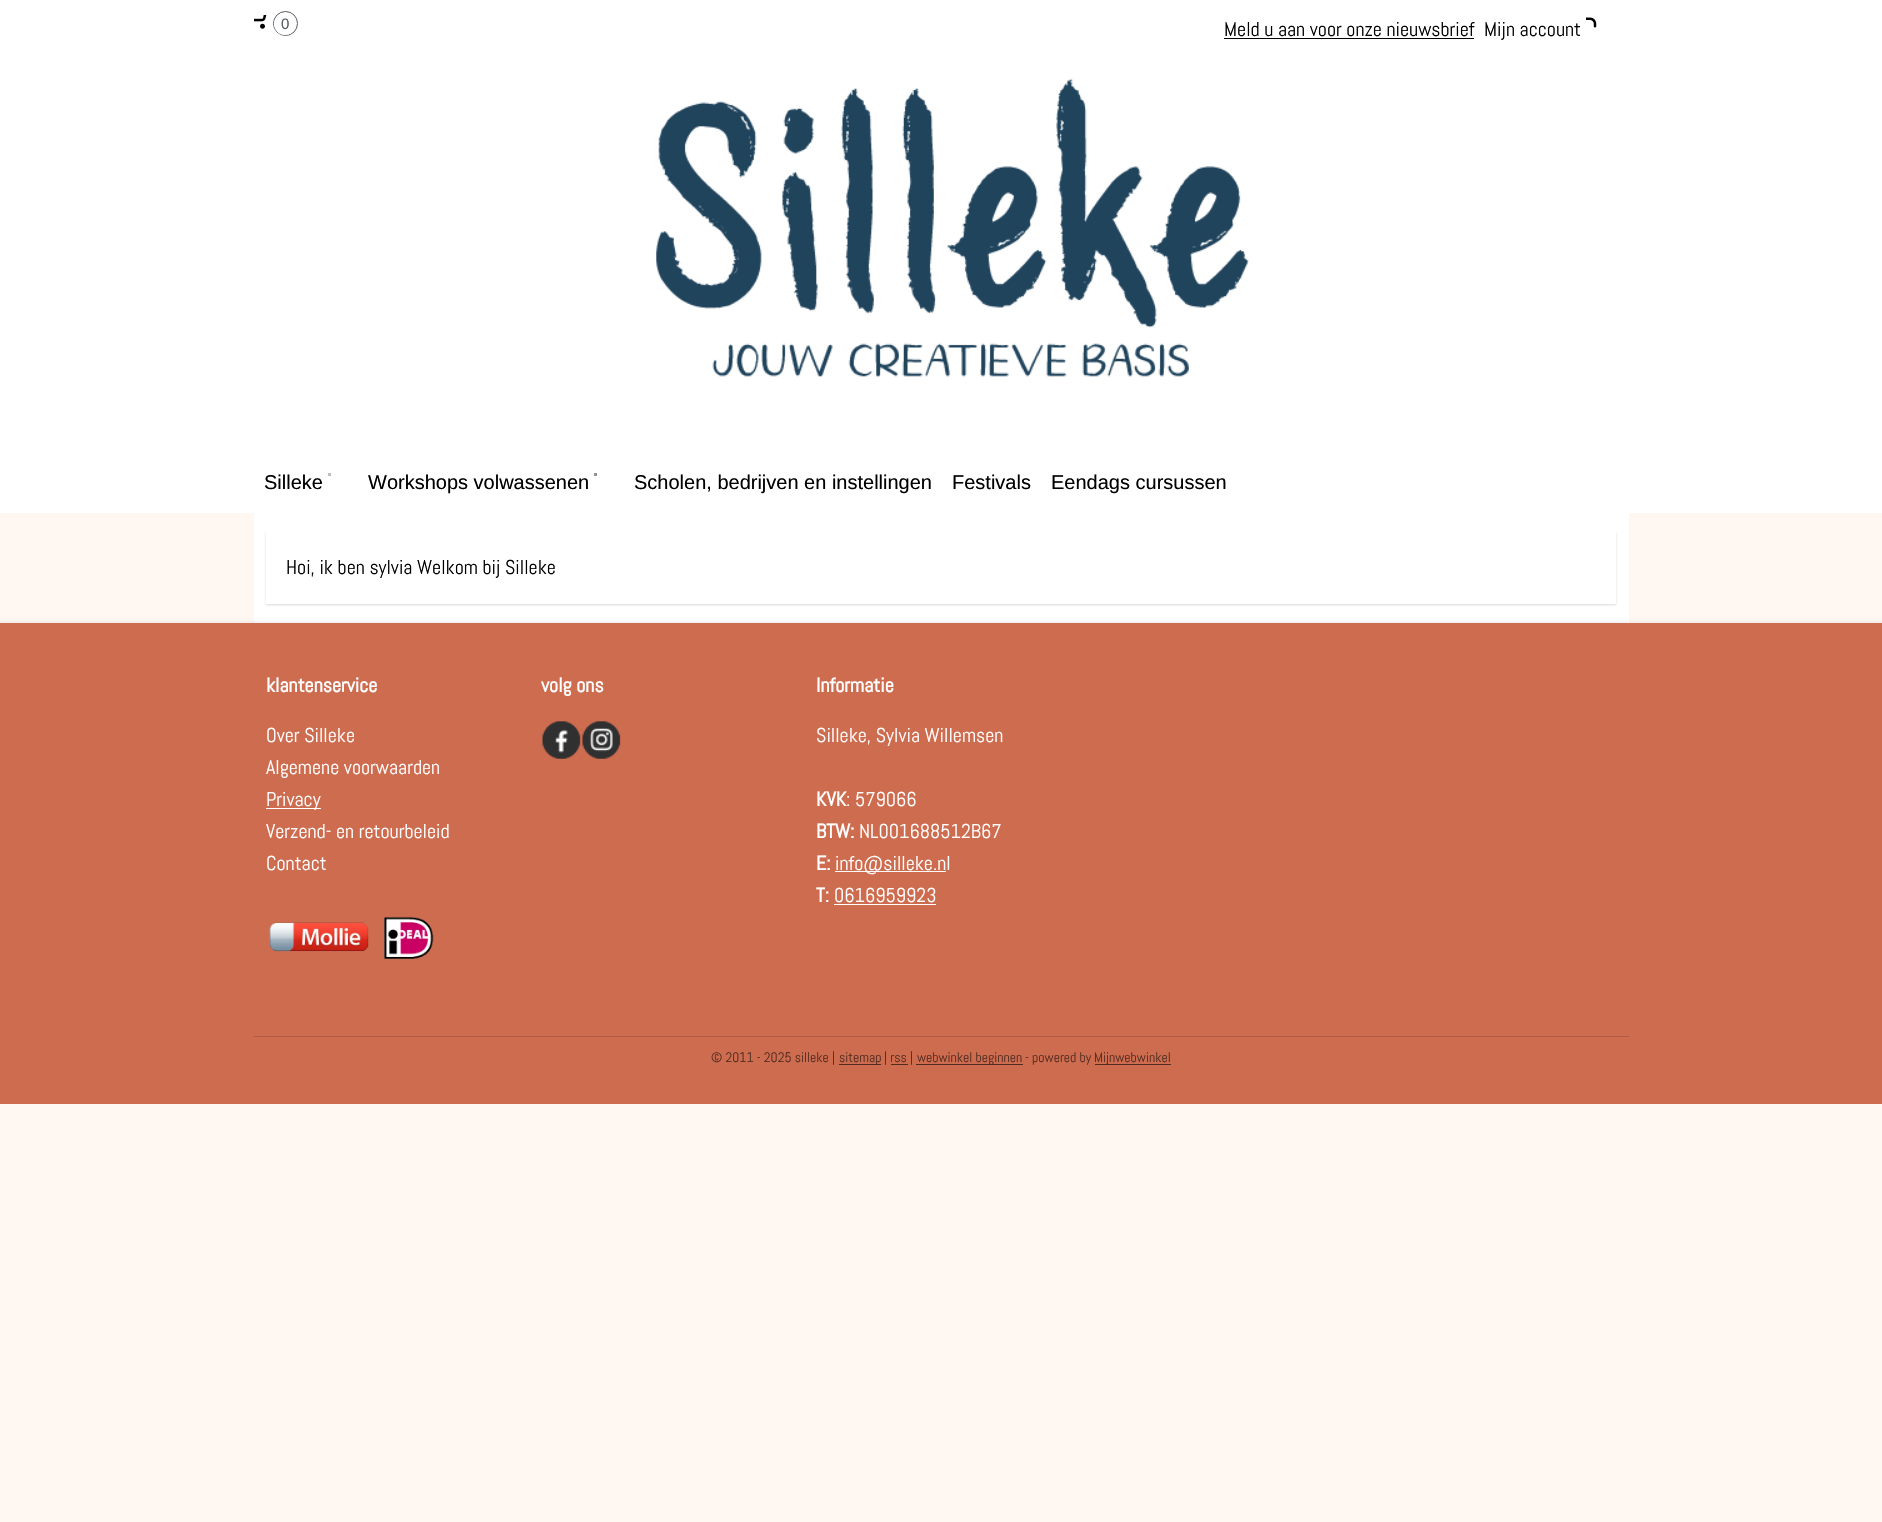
void draw(SkCanvas* canvas) {
	SkPaint paint;
	paint.setAntiAlias(true);
	auto svgPath = [&](const char* data, bool evenOdd = false) {
		SkPath result = *SkParsePath::FromSVGString(data);
		if (evenOdd) result.setFillType(SkPathFillType::kEvenOdd);
		return result;
	};
	canvas->clear(0xfffff8f2);
	paint.setColor(0xffffffff);
	canvas->drawRect(SkRect::MakeXYWH(0, 0, 1882, 513), paint);
	canvas->drawImageRect(SkImages::DeferredFromEncodedData(SkData::MakeFromFileName("img1.png")), SkRect::MakeXYWH(254, 15, 13, 14), SkSamplingOptions());
	paint.setStroke(true);
	paint.setStrokeWidth(1);
	paint.setColor(0xff575b62);
	canvas->drawCircle(285.5, 23.5, 12, paint);
	paint.setStroke(false);
	paint.setColor(0xffffffff);
	canvas->drawCircle(285, 24, 11, paint);
	SkFont f1(fontMgr->matchFamilyStyle("Liberation Sans", SkFontStyle::Normal()), 15);
	f1.setSubpixel(true);
	paint.setColor(0xff575b62);
	canvas->drawString("0", 281, 29, f1, paint);
	SkFont f2(fontMgr->matchFamilyStyle("Abel", SkFontStyle::Normal()), 20);
	f2.setSubpixel(true);
	paint.setColor(0xff000000);
	canvas->drawString("Meld u aan voor onze nieuwsbrief", 1224, 36, f2, paint);
	canvas->drawRect(SkRect::MakeXYWH(1224, 38, 250, 1), paint);
	canvas->drawString("Mijn account", 1484, 36, f2, paint);
	canvas->drawImageRect(SkImages::DeferredFromEncodedData(SkData::MakeFromFileName("img2.png")), SkRect::MakeXYWH(1586, 17, 11, 11), SkSamplingOptions());
	canvas->drawImageRect(SkImages::DeferredFromEncodedData(SkData::MakeFromFileName("img3.png")), SkRect::MakeXYWH(656, 78, 593, 299), SkSamplingOptions());
	SkFont f3(fontMgr->matchFamilyStyle("Liberation Sans", SkFontStyle::Normal()), 20);
	f3.setSubpixel(true);
	canvas->drawString("Silleke", 264, 489, f3, paint);
	paint.setColor(0xffbfbfbf);
	canvas->drawRect(SkRect::MakeXYWH(328, 473, 3, 3), paint);
	paint.setColor(0xff000000);
	canvas->drawString("Workshops volwassenen", 368, 489, f3, paint);
	paint.setColor(0xff919191);
	canvas->drawRect(SkRect::MakeXYWH(594, 473, 3, 3), paint);
	paint.setColor(0xff000000);
	canvas->drawString("Scholen, bedrijven en instellingen", 634, 489, f3, paint);
	canvas->drawString("Festivals", 952, 489, f3, paint);
	canvas->drawString("Eendags cursussen", 1051, 489, f3, paint);
	paint.setColor(0xffffffff);
	canvas->drawRect(SkRect::MakeXYWH(254, 513, 1375, 110), paint);
	canvas->save();
	canvas->clipPath(svgPath("M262 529H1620V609H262ZM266 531H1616V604H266Z", true), true);
	paint.setColor(0x26000000);
	paint.setMaskFilter(SkMaskFilter::MakeBlur(kNormal_SkBlurStyle, 1));
	canvas->drawRect(SkRect::MakeXYWH(266, 533, 1350, 72), paint);
	paint.setMaskFilter(nullptr);
	canvas->restore();
	paint.setStroke(true);
	paint.setColor(0xffffffff);
	canvas->drawRect(SkRect::MakeXYWH(266.5, 531.5, 1349, 72), paint);
	paint.setStroke(false);
	paint.setColor(0xff000000);
	canvas->drawString("Hoi, ik ben sylvia Welkom bij Silleke", 286, 574, f2, paint);
	paint.setColor(0x0d000000);
	paint.setMaskFilter(SkMaskFilter::MakeBlur(kNormal_SkBlurStyle, 1));
	canvas->drawRect(SkRect::MakeXYWH(0, 621, 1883, 414), paint);
	paint.setMaskFilter(nullptr);
	paint.setColor(0xffce6c4f);
	canvas->drawRect(SkRect::MakeXYWH(0, 623, 1882, 481), paint);
	SkFont f4(fontMgr->matchFamilyStyle("Abel", SkFontStyle::Bold()), 20);
	f4.setSubpixel(true);
	paint.setColor(0xffffffff);
	canvas->drawString("klantenservice", 266, 692, f4, paint);
	canvas->drawString("Over Silleke", 266, 742, f2, paint);
	canvas->drawString("Algemene voorwaarden", 266, 774, f2, paint);
	canvas->drawRect(SkRect::MakeXYWH(266, 808, 55, 1), paint);
	canvas->drawString("Privacy", 266, 806, f2, paint);
	canvas->drawString("Verzend- en retourbeleid", 266, 838, f2, paint);
	canvas->drawString("Contact", 266, 870, f2, paint);
	canvas->drawImageRect(SkImages::DeferredFromEncodedData(SkData::MakeFromFileName("img4.png")), SkRect::MakeXYWH(269, 916, 165, 44), SkSamplingOptions());
	canvas->drawString("volg ons", 541, 692, f4, paint);
	canvas->drawImageRect(SkImages::DeferredFromEncodedData(SkData::MakeFromFileName("img5.png")), SkRect::MakeXYWH(542, 721, 39, 38), SkSamplingOptions());
	canvas->drawImageRect(SkImages::DeferredFromEncodedData(SkData::MakeFromFileName("img6.png")), SkRect::MakeXYWH(582, 721, 39, 38), SkSamplingOptions());
	canvas->drawString("Informatie", 816, 692, f4, paint);
	canvas->drawString("Silleke, Sylvia Willemsen", 816, 742, f2, paint);
	canvas->drawString("KVK", 816, 806, f4, paint);
	canvas->drawString(": 579066", 846, 806, f2, paint);
	canvas->drawString("BTW:", 816, 838, f4, paint);
	canvas->drawString("NL001688512B67", 859, 838, f2, paint);
	canvas->drawString("E:", 816, 870, f4, paint);
	canvas->drawRect(SkRect::MakeXYWH(835, 871, 111, 1), paint);
	canvas->drawString("info@silleke.nl", 835, 870, f2, paint);
	canvas->drawString("T:", 816, 902, f4, paint);
	canvas->drawString("0616959923", 834, 902, f2, paint);
	canvas->drawRect(SkRect::MakeXYWH(834, 904, 102, 1), paint);
	paint.setColor(0xffaf5c43);
	canvas->drawRect(SkRect::MakeXYWH(254, 1036, 1375, 1), paint);
	SkFont f5(fontMgr->matchFamilyStyle("Abel", SkFontStyle::Normal()), 13.75);
	f5.setSubpixel(true);
	paint.setColor(0xff522b20);
	canvas->drawString("© 2011 - 2025 silleke |", 711, 1062, f5, paint);
	canvas->drawRect(SkRect::MakeXYWH(839, 1064, 42, 1), paint);
	canvas->drawString("sitemap", 839, 1062, f5, paint);
	canvas->drawString("| rss |", 884, 1062, f5, paint);
	canvas->drawRect(SkRect::MakeXYWH(916, 1064, 107, 1), paint);
	canvas->drawString("webwinkel beginnen", 917, 1062, f5, paint);
	canvas->drawString("- powered by", 1025, 1062, f5, paint);
	canvas->drawRect(SkRect::MakeXYWH(1095, 1064, 76, 1), paint);
	canvas->drawString("Mijnwebwinkel", 1094, 1062, f5, paint);
	canvas->drawRect(SkRect::MakeXYWH(891, 1064, 17, 1), paint);
}
